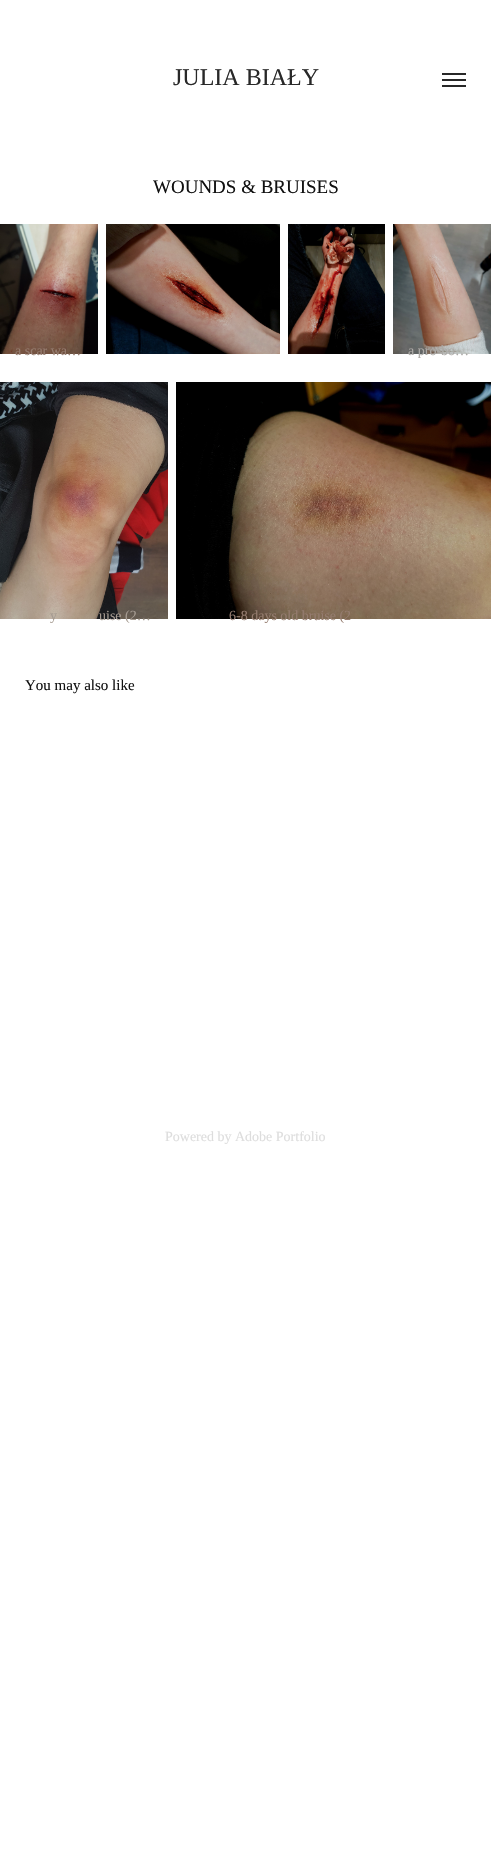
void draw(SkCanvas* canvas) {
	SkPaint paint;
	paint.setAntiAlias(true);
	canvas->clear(0xffffffff);
	SkFont f1(fontMgr->matchFamilyStyle("Liberation Serif", SkFontStyle::Normal()), 24);
	f1.setSubpixel(true);
	paint.setColor(0xff282828);
	canvas->drawString("JULIA BIAŁY", 173, 85, f1, paint);
	canvas->drawRect(SkRect::MakeXYWH(442, 73, 24, 2), paint);
	canvas->drawRect(SkRect::MakeXYWH(442, 79, 24, 2), paint);
	canvas->drawRect(SkRect::MakeXYWH(442, 85, 24, 2), paint);
	SkFont f2(fontMgr->matchFamilyStyle("Liberation Serif", SkFontStyle::Normal()), 19);
	f2.setSubpixel(true);
	paint.setColor(0xff111111);
	canvas->drawString("WOUNDS & BRUISES", 153, 193, f2, paint);
	canvas->drawImageRect(SkImages::DeferredFromEncodedData(SkData::MakeFromFileName("img1.png")), SkRect::MakeXYWH(0, 224, 98, 130), SkSamplingOptions());
	SkFont f3(fontMgr->matchFamilyStyle("Liberation Serif", SkFontStyle::Normal()), 14);
	f3.setSubpixel(true);
	paint.setColor(0xff957c6f);
	canvas->drawString("a scar wa…", 15, 355, f3, paint);
	canvas->drawImageRect(SkImages::DeferredFromEncodedData(SkData::MakeFromFileName("img2.png")), SkRect::MakeXYWH(106, 224, 174, 130), SkSamplingOptions());
	canvas->drawImageRect(SkImages::DeferredFromEncodedData(SkData::MakeFromFileName("img3.png")), SkRect::MakeXYWH(288, 224, 97, 130), SkSamplingOptions());
	canvas->drawImageRect(SkImages::DeferredFromEncodedData(SkData::MakeFromFileName("img4.png")), SkRect::MakeXYWH(393, 224, 98, 130), SkSamplingOptions());
	paint.setColor(0xffacaaa7);
	canvas->drawString("a pro-bo…", 408, 355, f3, paint);
	canvas->drawImageRect(SkImages::DeferredFromEncodedData(SkData::MakeFromFileName("img5.png")), SkRect::MakeXYWH(0, 382, 168, 237), SkSamplingOptions());
	paint.setColor(0xffa59b91);
	canvas->drawString("y", 50, 620, f3, paint);
	canvas->drawString("uise (2…", 99, 620, f3, paint);
	canvas->drawImageRect(SkImages::DeferredFromEncodedData(SkData::MakeFromFileName("img6.png")), SkRect::MakeXYWH(176, 382, 315, 237), SkSamplingOptions());
	paint.setColor(0xff957c6f);
	canvas->drawString("6-8 days old bruise (2", 229, 620, f3, paint);
	SkFont f4(fontMgr->matchFamilyStyle("Liberation Serif", SkFontStyle::Normal()), 15);
	f4.setSubpixel(true);
	paint.setColor(0xff111111);
	canvas->drawString("You may also like", 25, 690, f4, paint);
	paint.setColor(0xffdddddd);
	canvas->drawString("Powered by Adobe Portfolio", 165, 1141, f3, paint);
}
